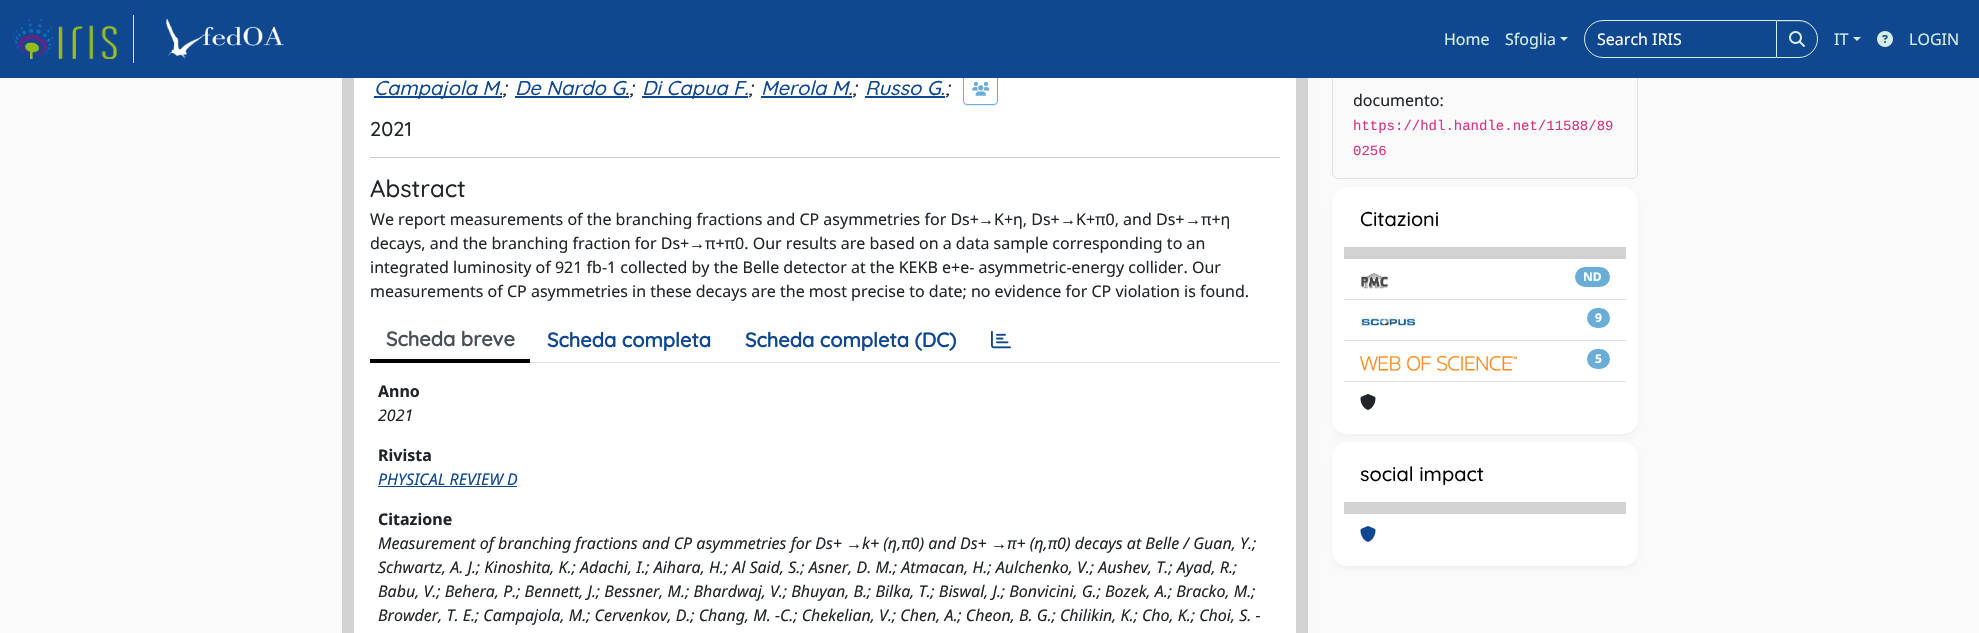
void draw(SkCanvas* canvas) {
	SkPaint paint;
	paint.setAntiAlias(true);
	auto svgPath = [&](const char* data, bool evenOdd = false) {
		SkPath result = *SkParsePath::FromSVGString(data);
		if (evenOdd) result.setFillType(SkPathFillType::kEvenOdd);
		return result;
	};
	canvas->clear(0xfffbfafa);
	paint.setColor(0xffeeeeee);
	paint.setMaskFilter(SkMaskFilter::MakeBlur(kNormal_SkBlurStyle, 3));
	canvas->drawRoundRect(SkRect::MakeXYWH(344, -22, 962, 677), 13, 13, paint);
	paint.setMaskFilter(nullptr);
	paint.setColor(0xffffffff);
	canvas->drawRect(SkRect::MakeXYWH(354, 78, 942, 555), paint);
	paint.setStroke(true);
	paint.setStrokeWidth(12);
	paint.setColor(0xffd2d2d2);
	canvas->drawRect(SkRect::MakeXYWH(348, -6, 954, 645), paint);
	canvas->save();
	canvas->clipPath(svgPath("M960 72H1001V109H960ZM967 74H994C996 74 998 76 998 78V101C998 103 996 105 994 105H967C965 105 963 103 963 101V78C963 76 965 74 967 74Z", true), true);
	paint.setStroke(false);
	paint.setColor(0x12000000);
	paint.setMaskFilter(SkMaskFilter::MakeBlur(kNormal_SkBlurStyle, 0.5));
	canvas->drawRoundRect(SkRect::MakeXYWH(963, 75, 35, 31), 4, 4, paint);
	paint.setMaskFilter(nullptr);
	canvas->restore();
	paint.setStroke(true);
	paint.setStrokeWidth(1);
	paint.setColor(0xff6aadd7);
	canvas->drawRoundRect(SkRect::MakeXYWH(963.5, 74.5, 34, 30), 3.5, 3.5, paint);
	paint.setColor(0xffdee2e6);
	canvas->drawRoundRect(SkRect::MakeXYWH(1332.5, -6.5, 305, 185), 5.5, 5.5, paint);
	paint.setStroke(false);
	paint.setColor(0xff0f4791);
	canvas->drawRect(SkRect::MakeXYWH(0, 0, 1979, 78), paint);
	paint.setColor(0xffd5eee4);
	canvas->drawRect(SkRect::MakeXYWH(133, 15, 1, 48), paint);
	canvas->drawImageRect(SkImages::DeferredFromEncodedData(SkData::MakeFromFileName("img1.png")), SkRect::MakeXYWH(13, 19, 104, 40), SkSamplingOptions());
	canvas->drawImageRect(SkImages::DeferredFromEncodedData(SkData::MakeFromFileName("img2.png")), SkRect::MakeXYWH(166, 19, 118, 40), SkSamplingOptions());
	SkFont f1(fontMgr->matchFamilyStyle("Noto Sans", SkFontStyle::Normal()), 16);
	f1.setSubpixel(true);
	canvas->drawString("Home", 1444, 45, f1, paint);
	canvas->drawString("Sfoglia", 1505, 45, f1, paint);
	canvas->drawPath(svgPath("M1560 37H1568L1564 41Z"), paint);
	paint.setStroke(true);
	canvas->drawPath(svgPath("M1603 20.5H1776.5V57.5H1603C1593 57.5 1584.5 49 1584.5 39C1584.5 29 1593 20.5 1603 20.5Z"), paint);
	paint.setStroke(false);
	paint.setColor(0xffffffff);
	canvas->drawString("Search IRIS", 1597, 45, f1, paint);
	paint.setColor(0x12000000);
	paint.setMaskFilter(SkMaskFilter::MakeBlur(kNormal_SkBlurStyle, 0.5));
	canvas->drawRoundRect(SkRect::MakeXYWH(1776, 21, 42, 38), 19, 19, paint);
	paint.setMaskFilter(nullptr);
	paint.setColor(0xff0f4791);
	canvas->drawPath(svgPath("M1776 20H1799C1809.5 20 1818 28.5 1818 39C1818 49.5 1809.5 58 1799 58H1776Z"), paint);
	paint.setColor(0xff3363a2);
	canvas->drawPath(svgPath("M1777 22H1799C1809 22 1817 30 1817 39C1817 31 1811 23 1803 21H1777Z"), paint);
	paint.setStroke(true);
	paint.setColor(0xffd5eee4);
	canvas->drawPath(svgPath("M1776.5 20.5H1799C1809 20.5 1817.5 29 1817.5 39C1817.5 49 1809 57.5 1799 57.5H1776.5Z"), paint);
	canvas->drawImageRect(SkImages::DeferredFromEncodedData(SkData::MakeFromFileName("img3.png")), SkRect::MakeXYWH(1789, 31, 16, 16), SkSamplingOptions());
	paint.setStroke(false);
	canvas->drawString("IT", 1834, 45, f1, paint);
	canvas->drawPath(svgPath("M1853 37H1861L1857 41Z"), paint);
	canvas->drawImageRect(SkImages::DeferredFromEncodedData(SkData::MakeFromFileName("img4.png")), SkRect::MakeXYWH(1877, 31, 16, 16), SkSamplingOptions());
	canvas->drawString("LOGIN", 1909, 45, f1, paint);
	paint.setColor(0xff0f4791);
	canvas->drawRect(SkRect::MakeXYWH(374, 96, 128, 2), paint);
	SkFont f2(fontMgr->matchFamilyStyle("Quicksand", SkFontStyle(500, SkFontStyle::kNormal_Width, SkFontStyle::kItalic_Slant)), 20);
	f2.setSubpixel(true);
	canvas->drawString("Campajola M.", 374, 95, f2, paint);
	paint.setColor(0xff212529);
	canvas->drawString(";", 502, 95, f2, paint);
	paint.setColor(0xff0f4791);
	canvas->drawString("De Nardo G.", 515, 95, f2, paint);
	paint.setColor(0xff212529);
	canvas->drawString(";", 629, 95, f2, paint);
	paint.setColor(0xff0f4791);
	canvas->drawRect(SkRect::MakeXYWH(515, 96, 114, 2), paint);
	canvas->drawRect(SkRect::MakeXYWH(642, 96, 106, 2), paint);
	canvas->drawString("Di Capua F.", 642, 95, f2, paint);
	paint.setColor(0xff212529);
	canvas->drawString(";", 748, 95, f2, paint);
	paint.setColor(0xff0f4791);
	canvas->drawString("Merola M.", 761, 95, f2, paint);
	paint.setColor(0xff212529);
	canvas->drawString(";", 852, 95, f2, paint);
	paint.setColor(0xff0f4791);
	canvas->drawRect(SkRect::MakeXYWH(761, 96, 91, 2), paint);
	canvas->drawString("Russo G.", 865, 95, f2, paint);
	paint.setColor(0xff212529);
	canvas->drawString(";", 945, 95, f2, paint);
	paint.setColor(0xff0f4791);
	canvas->drawRect(SkRect::MakeXYWH(865, 96, 80, 2), paint);
	canvas->drawImageRect(SkImages::DeferredFromEncodedData(SkData::MakeFromFileName("img5.png")), SkRect::MakeXYWH(972, 81, 18, 15), SkSamplingOptions());
	SkFont f3(fontMgr->matchFamilyStyle("Quicksand", SkFontStyle(500, SkFontStyle::kNormal_Width, SkFontStyle::kUpright_Slant)), 20);
	f3.setSubpixel(true);
	paint.setColor(0xff212529);
	canvas->drawString("2021", 370, 136, f3, paint);
	paint.setColor(0xffc8c9ca);
	canvas->drawRect(SkRect::MakeXYWH(370, 157, 910, 1), paint);
	SkFont f4(fontMgr->matchFamilyStyle("Quicksand", SkFontStyle(500, SkFontStyle::kNormal_Width, SkFontStyle::kUpright_Slant)), 24);
	f4.setSubpixel(true);
	paint.setColor(0xff212529);
	canvas->drawString("Abstract", 370, 197, f4, paint);
	canvas->drawString("We report measurements of the branching fractions and CP asymmetries for Ds+", 370, 225, f1, paint);
	SkFont f5(fontMgr->matchFamilyStyle("Liberation Sans", SkFontStyle::Normal()), 16);
	f5.setSubpixel(true);
	canvas->drawString("→", 978, 225, f5, paint);
	canvas->drawString("K+η, Ds+", 994, 225, f1, paint);
	canvas->drawString("→", 1060, 225, f5, paint);
	canvas->drawString("K+π0, and Ds+", 1076, 225, f1, paint);
	canvas->drawString("→", 1185, 225, f5, paint);
	canvas->drawString("π+η", 1201, 225, f1, paint);
	canvas->drawString("decays, and the branching fraction for Ds+", 370, 249, f1, paint);
	canvas->drawString("→", 689, 249, f5, paint);
	canvas->drawString("π+π0. Our results are based on a data sample corresponding to an", 705, 249, f1, paint);
	canvas->drawString("integrated luminosity of 921 fb-1 collected by the Belle detector at the KEKB e+e- asymmetric-energy collider. Our", 370, 273, f1, paint);
	canvas->drawString("measurements of CP asymmetries in these decays are the most precise to date; no evidence for CP violation is found.", 370, 297, f1, paint);
	paint.setColor(0xffdee2e6);
	canvas->drawRect(SkRect::MakeXYWH(530, 362, 750, 1), paint);
	paint.setColor(0xff000000);
	canvas->drawRect(SkRect::MakeXYWH(370, 359, 160, 4), paint);
	SkFont f6(fontMgr->matchFamilyStyle("Quicksand", SkFontStyle::Bold()), 20);
	f6.setSubpixel(true);
	paint.setColor(0xff495057);
	canvas->drawString("Scheda breve", 386, 346, f6, paint);
	paint.setColor(0xff0f4791);
	canvas->drawString("Scheda completa", 547, 347, f6, paint);
	canvas->drawString("Scheda completa (DC)", 745, 347, f6, paint);
	canvas->drawImageRect(SkImages::DeferredFromEncodedData(SkData::MakeFromFileName("img6.png")), SkRect::MakeXYWH(991, 330, 20, 19), SkSamplingOptions());
	SkFont f7(fontMgr->matchFamilyStyle("Noto Sans", SkFontStyle::Bold()), 16);
	f7.setSubpixel(true);
	paint.setColor(0xff212529);
	canvas->drawString("Anno", 378, 397, f7, paint);
	SkFont f8(fontMgr->matchFamilyStyle("Noto Sans", SkFontStyle::Italic()), 16);
	f8.setSubpixel(true);
	canvas->drawString("2021", 378, 421, f8, paint);
	canvas->drawString("Rivista", 378, 461, f7, paint);
	paint.setColor(0xff0f4791);
	canvas->drawString("PHYSICAL REVIEW D", 378, 485, f8, paint);
	canvas->drawRect(SkRect::MakeXYWH(378, 486, 139, 1), paint);
	paint.setColor(0xff212529);
	canvas->drawString("Citazione", 378, 525, f7, paint);
	canvas->drawString("Measurement of branching fractions and CP asymmetries for Ds+", 378, 549, f8, paint);
	SkFont f9(fontMgr->matchFamilyStyle("Liberation Sans", SkFontStyle::Italic()), 16);
	f9.setSubpixel(true);
	canvas->drawString("→", 846, 549, f9, paint);
	canvas->drawString("k+ (η,π0) and Ds+", 862, 549, f8, paint);
	canvas->drawString("→", 991, 549, f9, paint);
	canvas->drawString("π+ (η,π0) decays at Belle / Guan, Y.;", 1007, 549, f8, paint);
	canvas->drawString("Schwartz, A. J.; Kinoshita, K.; Adachi, I.; Aihara, H.; Al Said, S.; Asner, D. M.; Atmacan, H.; Aulchenko, V.; Aushev, T.; Ayad, R.;", 378, 573, f8, paint);
	canvas->drawString("Babu, V.; Behera, P.; Bennett, J.; Bessner, M.; Bhardwaj, V.; Bhuyan, B.; Bilka, T.; Biswal, J.; Bonvicini, G.; Bozek, A.; Bracko, M.;", 378, 597, f8, paint);
	canvas->drawString("Browder, T. E.; Campajola, M.; Cervenkov, D.; Chang, M. -C.; Chekelian, V.; Chen, A.; Cheon, B. G.; Chilikin, K.; Cho, K.; Choi, S. -", 378, 621, f8, paint);
	canvas->drawString("documento:", 1353, 106, f1, paint);
	SkFont f10(fontMgr->matchFamilyStyle("Liberation Mono", SkFontStyle::Normal()), 14);
	f10.setSubpixel(true);
	paint.setColor(0xffd63384);
	canvas->drawString("https://hdl.handle.net/11588/89", 1353, 130, f10, paint);
	canvas->drawString("0256", 1353, 155, f10, paint);
	paint.setColor(0xffeeeeee);
	paint.setMaskFilter(SkMaskFilter::MakeBlur(kNormal_SkBlurStyle, 3));
	canvas->drawRoundRect(SkRect::MakeXYWH(1334, 193, 302, 243), 13, 13, paint);
	paint.setMaskFilter(nullptr);
	paint.setColor(0xffffffff);
	canvas->drawRoundRect(SkRect::MakeXYWH(1338, 193, 294, 235), 9, 9, paint);
	paint.setStroke(true);
	paint.setStrokeWidth(12);
	canvas->drawRoundRect(SkRect::MakeXYWH(1338, 193, 294, 235), 9, 9, paint);
	paint.setStroke(false);
	paint.setColor(0xffd2d2d2);
	canvas->drawRect(SkRect::MakeXYWH(1344, 247, 282, 12), paint);
	paint.setColor(0xff000000);
	canvas->drawString("Citazioni", 1360, 226, f3, paint);
	paint.setColor(0xffdfdfdf);
	canvas->drawRect(SkRect::MakeXYWH(1344, 299, 282, 1), paint);
	canvas->drawImageRect(SkImages::DeferredFromEncodedData(SkData::MakeFromFileName("img7.png")), SkRect::MakeXYWH(1361, 273, 27, 16), SkSamplingOptions());
	paint.setColor(0xff6aadd7);
	canvas->drawRoundRect(SkRect::MakeXYWH(1575, 267, 35, 20), 10, 10, paint);
	SkFont f11(fontMgr->matchFamilyStyle("Noto Sans", SkFontStyle::Bold()), 12);
	f11.setSubpixel(true);
	paint.setColor(0xffffffff);
	canvas->drawString("ND", 1583, 281, f11, paint);
	paint.setColor(0xffdfdfdf);
	canvas->drawRect(SkRect::MakeXYWH(1344, 340, 282, 1), paint);
	canvas->drawImageRect(SkImages::DeferredFromEncodedData(SkData::MakeFromFileName("img8.png")), SkRect::MakeXYWH(1360, 314, 55, 13), SkSamplingOptions());
	paint.setColor(0xff6aadd7);
	canvas->drawRoundRect(SkRect::MakeXYWH(1587, 308, 23, 20), 10, 10, paint);
	paint.setColor(0xffffffff);
	canvas->drawString("9", 1595, 322, f11, paint);
	paint.setColor(0xffdfdfdf);
	canvas->drawRect(SkRect::MakeXYWH(1344, 381, 282, 1), paint);
	canvas->drawImageRect(SkImages::DeferredFromEncodedData(SkData::MakeFromFileName("img9.png")), SkRect::MakeXYWH(1360, 356, 157, 15), SkSamplingOptions());
	paint.setColor(0xff6aadd7);
	canvas->drawRoundRect(SkRect::MakeXYWH(1587, 349, 23, 20), 10, 10, paint);
	paint.setColor(0xffffffff);
	canvas->drawString("5", 1595, 363, f11, paint);
	canvas->drawImageRect(SkImages::DeferredFromEncodedData(SkData::MakeFromFileName("img10.png")), SkRect::MakeXYWH(1360, 394, 16, 16), SkSamplingOptions());
	paint.setColor(0xffeeeeee);
	paint.setMaskFilter(SkMaskFilter::MakeBlur(kNormal_SkBlurStyle, 3));
	canvas->drawRoundRect(SkRect::MakeXYWH(1334, 448, 302, 120), 13, 13, paint);
	paint.setMaskFilter(nullptr);
	paint.setColor(0xffffffff);
	canvas->drawRoundRect(SkRect::MakeXYWH(1338, 448, 294, 112), 9, 9, paint);
	paint.setStroke(true);
	canvas->drawRoundRect(SkRect::MakeXYWH(1338, 448, 294, 112), 9, 9, paint);
	paint.setStroke(false);
	paint.setColor(0xffd2d2d2);
	canvas->drawRect(SkRect::MakeXYWH(1344, 502, 282, 12), paint);
	paint.setColor(0xff000000);
	canvas->drawString("social impact", 1360, 481, f3, paint);
	canvas->drawImageRect(SkImages::DeferredFromEncodedData(SkData::MakeFromFileName("img11.png")), SkRect::MakeXYWH(1360, 526, 16, 16), SkSamplingOptions());
}
